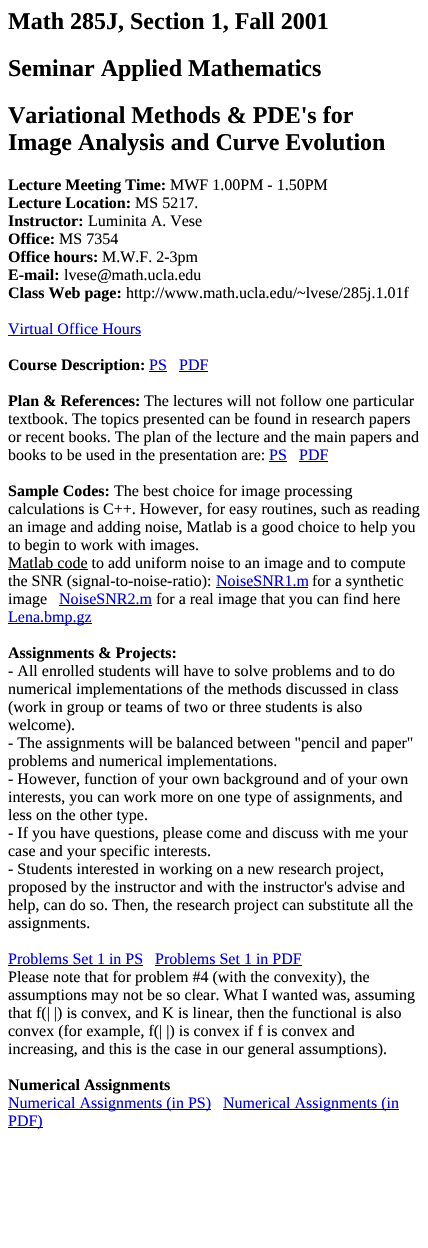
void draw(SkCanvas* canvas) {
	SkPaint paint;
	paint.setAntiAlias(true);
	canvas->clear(0xffffffff);
	SkFont f1(fontMgr->matchFamilyStyle("Liberation Serif", SkFontStyle::Bold()), 24);
	f1.setSubpixel(true);
	paint.setColor(0xff000000);
	canvas->drawString("Math 285J, Section 1, Fall 2001", 8, 29, f1, paint);
	canvas->drawString("Seminar Applied Mathematics", 8, 76, f1, paint);
	canvas->drawString("Variational Methods & PDE's for", 8, 123, f1, paint);
	canvas->drawString("Image Analysis and Curve Evolution", 8, 150, f1, paint);
	SkFont f2(fontMgr->matchFamilyStyle("Liberation Serif", SkFontStyle::Bold()), 16);
	f2.setSubpixel(true);
	canvas->drawString("Lecture Meeting Time:", 8, 190, f2, paint);
	SkFont f3(fontMgr->matchFamilyStyle("Liberation Serif", SkFontStyle::Normal()), 16);
	f3.setSubpixel(true);
	canvas->drawString("MWF 1.00PM - 1.50PM", 170, 190, f3, paint);
	canvas->drawString("Lecture Location:", 8, 208, f2, paint);
	canvas->drawString("MS 5217.", 135, 208, f3, paint);
	canvas->drawString("Instructor:", 8, 226, f2, paint);
	canvas->drawString("Luminita A. Vese", 88, 226, f3, paint);
	canvas->drawString("Office:", 8, 244, f2, paint);
	canvas->drawString("MS 7354", 59, 244, f3, paint);
	canvas->drawString("Office hours:", 8, 262, f2, paint);
	canvas->drawString("M.W.F. 2-3pm", 102, 262, f3, paint);
	canvas->drawString("E-mail:", 8, 280, f2, paint);
	canvas->drawString("lvese@math.ucla.edu", 64, 280, f3, paint);
	canvas->drawString("Class Web page:", 8, 298, f2, paint);
	canvas->drawString("http://www.math.ucla.edu/~lvese/285j.1.01f", 126, 298, f3, paint);
	paint.setColor(0xff0000ee);
	canvas->drawString("Virtual Office Hours", 8, 334, f3, paint);
	canvas->drawRect(SkRect::MakeXYWH(8, 335, 133, 1), paint);
	paint.setColor(0xff000000);
	canvas->drawString("Course Description:", 8, 370, f2, paint);
	paint.setColor(0xff0000ee);
	canvas->drawString("PS", 149, 370, f3, paint);
	paint.setColor(0xff000000);
	canvas->drawRect(SkRect::MakeXYWH(149, 371, 18, 1), paint);
	paint.setColor(0xff0000ee);
	canvas->drawString("PDF", 179, 370, f3, paint);
	paint.setColor(0xff000000);
	canvas->drawRect(SkRect::MakeXYWH(179, 371, 29, 1), paint);
	canvas->drawString("Plan & References:", 8, 406, f2, paint);
	canvas->drawString("The lectures will not follow one particular", 144, 406, f3, paint);
	canvas->drawString("textbook. The topics presented can be found in research papers", 8, 424, f3, paint);
	canvas->drawString("or recent books. The plan of the lecture and the main papers and", 8, 442, f3, paint);
	canvas->drawString("books to be used in the presentation are:", 8, 460, f3, paint);
	paint.setColor(0xff0000ee);
	canvas->drawString("PS", 269, 460, f3, paint);
	paint.setColor(0xff000000);
	canvas->drawRect(SkRect::MakeXYWH(269, 461, 18, 1), paint);
	paint.setColor(0xff0000ee);
	canvas->drawString("PDF", 299, 460, f3, paint);
	paint.setColor(0xff000000);
	canvas->drawRect(SkRect::MakeXYWH(299, 461, 29, 1), paint);
	canvas->drawString("Sample Codes:", 8, 496, f2, paint);
	canvas->drawString("The best choice for image processing", 114, 496, f3, paint);
	canvas->drawString("calculations is C++. However, for easy routines, such as reading", 8, 514, f3, paint);
	canvas->drawString("an image and adding noise, Matlab is a good choice to help you", 8, 532, f3, paint);
	canvas->drawString("to begin to work with images.", 8, 550, f3, paint);
	canvas->drawRect(SkRect::MakeXYWH(8, 569, 80, 1), paint);
	canvas->drawString("Matlab code to add uniform noise to an image and to compute", 8, 568, f3, paint);
	canvas->drawString("the SNR (signal-to-noise-ratio):", 8, 586, f3, paint);
	paint.setColor(0xff0000ee);
	canvas->drawString("NoiseSNR1.m", 216, 586, f3, paint);
	paint.setColor(0xff000000);
	canvas->drawRect(SkRect::MakeXYWH(216, 587, 92, 1), paint);
	canvas->drawString("for a synthetic", 312, 586, f3, paint);
	canvas->drawString("image", 8, 604, f3, paint);
	paint.setColor(0xff0000ee);
	canvas->drawString("NoiseSNR2.m", 59, 604, f3, paint);
	paint.setColor(0xff000000);
	canvas->drawRect(SkRect::MakeXYWH(59, 605, 93, 1), paint);
	canvas->drawString("for a real image that you can find here", 156, 604, f3, paint);
	canvas->drawRect(SkRect::MakeXYWH(8, 623, 84, 1), paint);
	paint.setColor(0xff0000ee);
	canvas->drawString("Lena.bmp.gz", 8, 622, f3, paint);
	paint.setColor(0xff000000);
	canvas->drawString("Assignments & Projects:", 8, 658, f2, paint);
	canvas->drawString("- All enrolled students will have to solve problems and to do", 8, 676, f3, paint);
	canvas->drawString("numerical implementations of the methods discussed in class", 8, 694, f3, paint);
	canvas->drawString("(work in group or teams of two or three students is also", 8, 712, f3, paint);
	canvas->drawString("welcome).", 8, 730, f3, paint);
	canvas->drawString("- The assignments will be balanced between \"pencil and paper\"", 8, 748, f3, paint);
	canvas->drawString("problems and numerical implementations.", 8, 766, f3, paint);
	canvas->drawString("- However, function of your own background and of your own", 8, 784, f3, paint);
	canvas->drawString("interests, you can work more on one type of assignments, and", 8, 802, f3, paint);
	canvas->drawString("less on the other type.", 8, 820, f3, paint);
	canvas->drawString("- If you have questions, please come and discuss with me your", 8, 838, f3, paint);
	canvas->drawString("case and your specific interests.", 8, 856, f3, paint);
	canvas->drawString("- Students interested in working on a new research project,", 8, 874, f3, paint);
	canvas->drawString("proposed by the instructor and with the instructor's advise and", 8, 892, f3, paint);
	canvas->drawString("help, can do so. Then, the research project can substitute all the", 8, 910, f3, paint);
	canvas->drawString("assignments.", 8, 928, f3, paint);
	paint.setColor(0xff0000ee);
	canvas->drawString("Problems Set 1 in PS", 8, 964, f3, paint);
	paint.setColor(0xff000000);
	canvas->drawRect(SkRect::MakeXYWH(8, 965, 135, 1), paint);
	paint.setColor(0xff0000ee);
	canvas->drawString("Problems Set 1 in PDF", 155, 964, f3, paint);
	paint.setColor(0xff000000);
	canvas->drawRect(SkRect::MakeXYWH(155, 965, 147, 1), paint);
	canvas->drawString("Please note that for problem #4 (with the convexity), the", 8, 982, f3, paint);
	canvas->drawString("assumptions may not be so clear. What I wanted was, assuming", 8, 1000, f3, paint);
	canvas->drawString("that f(| |) is convex, and K is linear, then the functional is also", 8, 1018, f3, paint);
	canvas->drawString("convex (for example, f(| |) is convex if f is convex and", 8, 1036, f3, paint);
	canvas->drawString("increasing, and this is the case in our general assumptions).", 8, 1054, f3, paint);
	canvas->drawString("Numerical Assignments", 8, 1090, f2, paint);
	canvas->drawRect(SkRect::MakeXYWH(8, 1109, 203, 1), paint);
	paint.setColor(0xff0000ee);
	canvas->drawString("Numerical Assignments (in PS)", 8, 1108, f3, paint);
	paint.setColor(0xff000000);
	canvas->drawRect(SkRect::MakeXYWH(223, 1109, 176, 1), paint);
	paint.setColor(0xff0000ee);
	canvas->drawString("Numerical Assignments (in", 223, 1108, f3, paint);
	paint.setColor(0xff000000);
	canvas->drawRect(SkRect::MakeXYWH(8, 1127, 35, 1), paint);
	paint.setColor(0xff0000ee);
	canvas->drawString("PDF)", 8, 1126, f3, paint);
}
